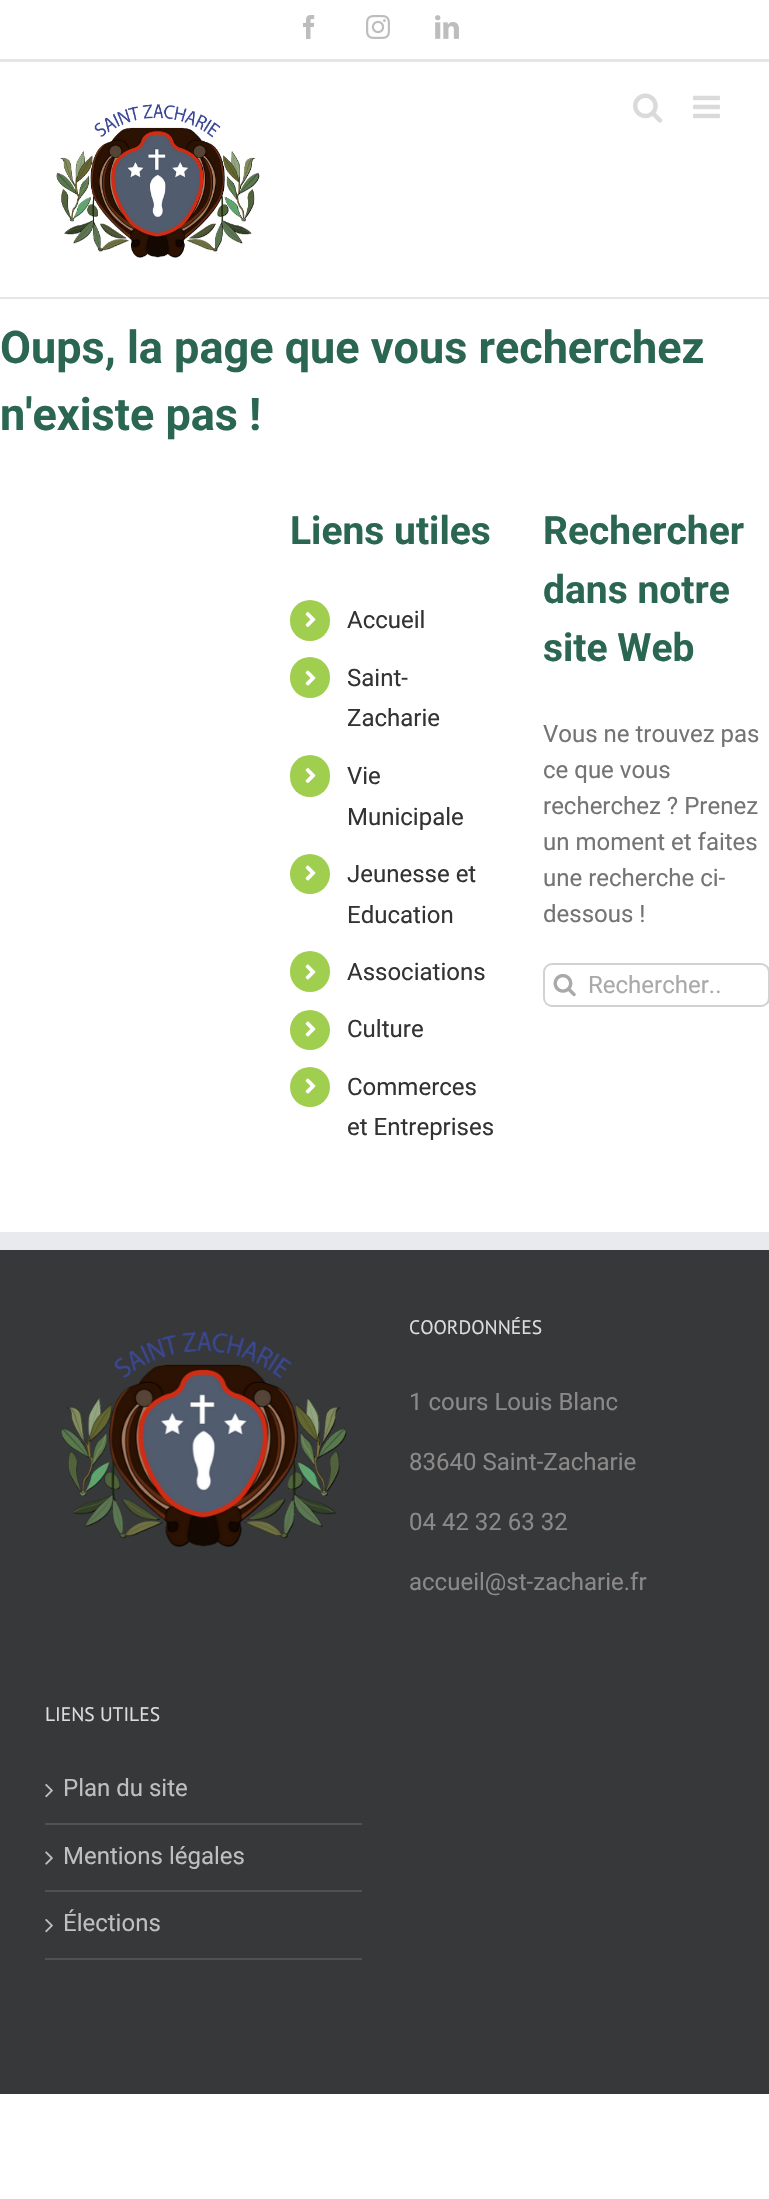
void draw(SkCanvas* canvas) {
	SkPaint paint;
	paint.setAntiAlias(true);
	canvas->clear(0xffffffff);
	paint.setColor(0xffe5e5e5);
	canvas->drawRect(SkRect::MakeXYWH(0, 59, 769, 3), paint);
	canvas->drawImageRect(SkImages::DeferredFromEncodedData(SkData::MakeFromFileName("img1.png")), SkRect::MakeXYWH(303, 15, 12, 24), SkSamplingOptions());
	canvas->drawImageRect(SkImages::DeferredFromEncodedData(SkData::MakeFromFileName("img2.png")), SkRect::MakeXYWH(366, 15, 24, 24), SkSamplingOptions());
	canvas->drawImageRect(SkImages::DeferredFromEncodedData(SkData::MakeFromFileName("img3.png")), SkRect::MakeXYWH(435, 15, 24, 24), SkSamplingOptions());
	canvas->drawRect(SkRect::MakeXYWH(0, 297, 769, 2), paint);
	canvas->drawImageRect(SkImages::DeferredFromEncodedData(SkData::MakeFromFileName("img4.png")), SkRect::MakeXYWH(56, 104, 204, 154), SkSamplingOptions());
	canvas->drawImageRect(SkImages::DeferredFromEncodedData(SkData::MakeFromFileName("img5.png")), SkRect::MakeXYWH(633, 93, 30, 30), SkSamplingOptions());
	canvas->drawImageRect(SkImages::DeferredFromEncodedData(SkData::MakeFromFileName("img6.png")), SkRect::MakeXYWH(693, 95, 27, 24), SkSamplingOptions());
	SkFont f1(fontMgr->matchFamilyStyle("Roboto", SkFontStyle::Bold()), 45);
	f1.setSubpixel(true);
	paint.setColor(0xff2a6651);
	canvas->drawString("Oups, la page que vous recherchez", 0, 363, f1, paint);
	canvas->drawString("n'existe pas !", 0, 430, f1, paint);
	SkFont f2(fontMgr->matchFamilyStyle("Roboto", SkFontStyle::Bold()), 39);
	f2.setSubpixel(true);
	canvas->drawString("Liens utiles", 290, 544, f2, paint);
	paint.setColor(0xffa0ce4e);
	canvas->drawRoundRect(SkRect::MakeXYWH(290, 600, 40, 41), 20, 20, paint);
	canvas->drawImageRect(SkImages::DeferredFromEncodedData(SkData::MakeFromFileName("img7.png")), SkRect::MakeXYWH(305, 612, 11, 15), SkSamplingOptions());
	SkFont f3(fontMgr->matchFamilyStyle("Roboto", SkFontStyle::Normal()), 24);
	f3.setSubpixel(true);
	paint.setColor(0xff333333);
	canvas->drawString("Accueil", 347, 628, f3, paint);
	paint.setColor(0xffa0ce4e);
	canvas->drawRoundRect(SkRect::MakeXYWH(290, 657, 40, 41), 20, 20, paint);
	canvas->drawImageRect(SkImages::DeferredFromEncodedData(SkData::MakeFromFileName("img8.png")), SkRect::MakeXYWH(305, 670, 11, 16), SkSamplingOptions());
	paint.setColor(0xff333333);
	canvas->drawString("Saint-", 347, 686, f3, paint);
	canvas->drawString("Zacharie", 347, 726, f3, paint);
	paint.setColor(0xffa0ce4e);
	canvas->drawRoundRect(SkRect::MakeXYWH(290, 755, 40, 42), 20, 20, paint);
	canvas->drawImageRect(SkImages::DeferredFromEncodedData(SkData::MakeFromFileName("img7.png")), SkRect::MakeXYWH(305, 768, 11, 15), SkSamplingOptions());
	paint.setColor(0xff333333);
	canvas->drawString("Vie", 347, 784, f3, paint);
	canvas->drawString("Municipale", 347, 825, f3, paint);
	paint.setColor(0xffa0ce4e);
	canvas->drawCircle(310, 874, 20, paint);
	canvas->drawImageRect(SkImages::DeferredFromEncodedData(SkData::MakeFromFileName("img8.png")), SkRect::MakeXYWH(305, 865, 11, 16), SkSamplingOptions());
	paint.setColor(0xff333333);
	canvas->drawString("Jeunesse et", 347, 882, f3, paint);
	canvas->drawString("Education", 347, 923, f3, paint);
	paint.setColor(0xffa0ce4e);
	canvas->drawRoundRect(SkRect::MakeXYWH(290, 951, 40, 41), 20, 20, paint);
	canvas->drawImageRect(SkImages::DeferredFromEncodedData(SkData::MakeFromFileName("img8.png")), SkRect::MakeXYWH(305, 964, 11, 16), SkSamplingOptions());
	paint.setColor(0xff333333);
	canvas->drawString("Associations", 347, 980, f3, paint);
	paint.setColor(0xffa0ce4e);
	canvas->drawCircle(310, 1030, 20, paint);
	canvas->drawImageRect(SkImages::DeferredFromEncodedData(SkData::MakeFromFileName("img8.png")), SkRect::MakeXYWH(305, 1021, 11, 16), SkSamplingOptions());
	paint.setColor(0xff333333);
	canvas->drawString("Culture", 347, 1037, f3, paint);
	paint.setColor(0xffa0ce4e);
	canvas->drawCircle(310, 1087, 20, paint);
	canvas->drawImageRect(SkImages::DeferredFromEncodedData(SkData::MakeFromFileName("img8.png")), SkRect::MakeXYWH(305, 1078, 11, 16), SkSamplingOptions());
	paint.setColor(0xff333333);
	canvas->drawString("Commerces", 347, 1095, f3, paint);
	canvas->drawString("et Entreprises", 347, 1135, f3, paint);
	paint.setColor(0xff2a6651);
	canvas->drawString("Rechercher", 543, 544, f2, paint);
	canvas->drawString("dans notre", 543, 603, f2, paint);
	canvas->drawString("site Web", 543, 661, f2, paint);
	paint.setColor(0xff747474);
	canvas->drawString("Vous ne trouvez pas", 543, 742, f3, paint);
	canvas->drawString("ce que vous", 543, 778, f3, paint);
	canvas->drawString("recherchez ? Prenez", 543, 814, f3, paint);
	canvas->drawString("un moment et faites", 543, 850, f3, paint);
	canvas->drawString("une recherche ci-", 543, 886, f3, paint);
	canvas->drawString("dessous !", 543, 922, f3, paint);
	paint.setStroke(true);
	paint.setStrokeWidth(2);
	paint.setColor(0xffd2d2d2);
	canvas->drawRoundRect(SkRect::MakeXYWH(544, 964, 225, 42), 8, 8, paint);
	canvas->drawImageRect(SkImages::DeferredFromEncodedData(SkData::MakeFromFileName("img9.png")), SkRect::MakeXYWH(553, 974, 23, 23), SkSamplingOptions());
	paint.setStroke(false);
	paint.setColor(0xffaaa9a9);
	canvas->drawString("Rechercher..", 588, 993, f3, paint);
	paint.setColor(0xff363839);
	canvas->drawRect(SkRect::MakeXYWH(0, 1250, 769, 844), paint);
	paint.setColor(0xffe9eaee);
	canvas->drawRect(SkRect::MakeXYWH(0, 1232, 769, 18), paint);
	canvas->drawImageRect(SkImages::DeferredFromEncodedData(SkData::MakeFromFileName("img10.png")), SkRect::MakeXYWH(61, 1331, 286, 216), SkSamplingOptions());
	SkFont f4(fontMgr->matchFamilyStyle("PT Sans", SkFontStyle::Normal()), 19.5);
	f4.setSubpixel(true);
	paint.setColor(0xffdddddd);
	canvas->drawString("COORDONNÉES", 409, 1334, f4, paint);
	paint.setColor(0xff8c8989);
	canvas->drawString("1 cours Louis Blanc", 409, 1410, f3, paint);
	canvas->drawString("83640 Saint-Zacharie", 409, 1470, f3, paint);
	canvas->drawString("04 42 32 63 32", 409, 1530, f3, paint);
	canvas->drawString("accueil@st-zacharie.fr", 409, 1590, f3, paint);
	paint.setColor(0xffdddddd);
	canvas->drawString("LIENS UTILES", 45, 1721, f4, paint);
	paint.setColor(0xff505152);
	canvas->drawRect(SkRect::MakeXYWH(45, 1823, 317, 2), paint);
	canvas->drawImageRect(SkImages::DeferredFromEncodedData(SkData::MakeFromFileName("img11.png")), SkRect::MakeXYWH(45, 1784, 8, 14), SkSamplingOptions());
	paint.setColor(0xffbfbfbf);
	canvas->drawString("Plan du site", 63, 1796, f3, paint);
	paint.setColor(0xff505152);
	canvas->drawRect(SkRect::MakeXYWH(45, 1890, 317, 2), paint);
	canvas->drawImageRect(SkImages::DeferredFromEncodedData(SkData::MakeFromFileName("img12.png")), SkRect::MakeXYWH(45, 1851, 8, 14), SkSamplingOptions());
	paint.setColor(0xffbfbfbf);
	canvas->drawString("Mentions légales", 63, 1864, f3, paint);
	paint.setColor(0xff505152);
	canvas->drawRect(SkRect::MakeXYWH(45, 1958, 317, 2), paint);
	canvas->drawImageRect(SkImages::DeferredFromEncodedData(SkData::MakeFromFileName("img11.png")), SkRect::MakeXYWH(45, 1919, 8, 14), SkSamplingOptions());
	paint.setColor(0xffbfbfbf);
	canvas->drawString("Élections", 63, 1931, f3, paint);
}
